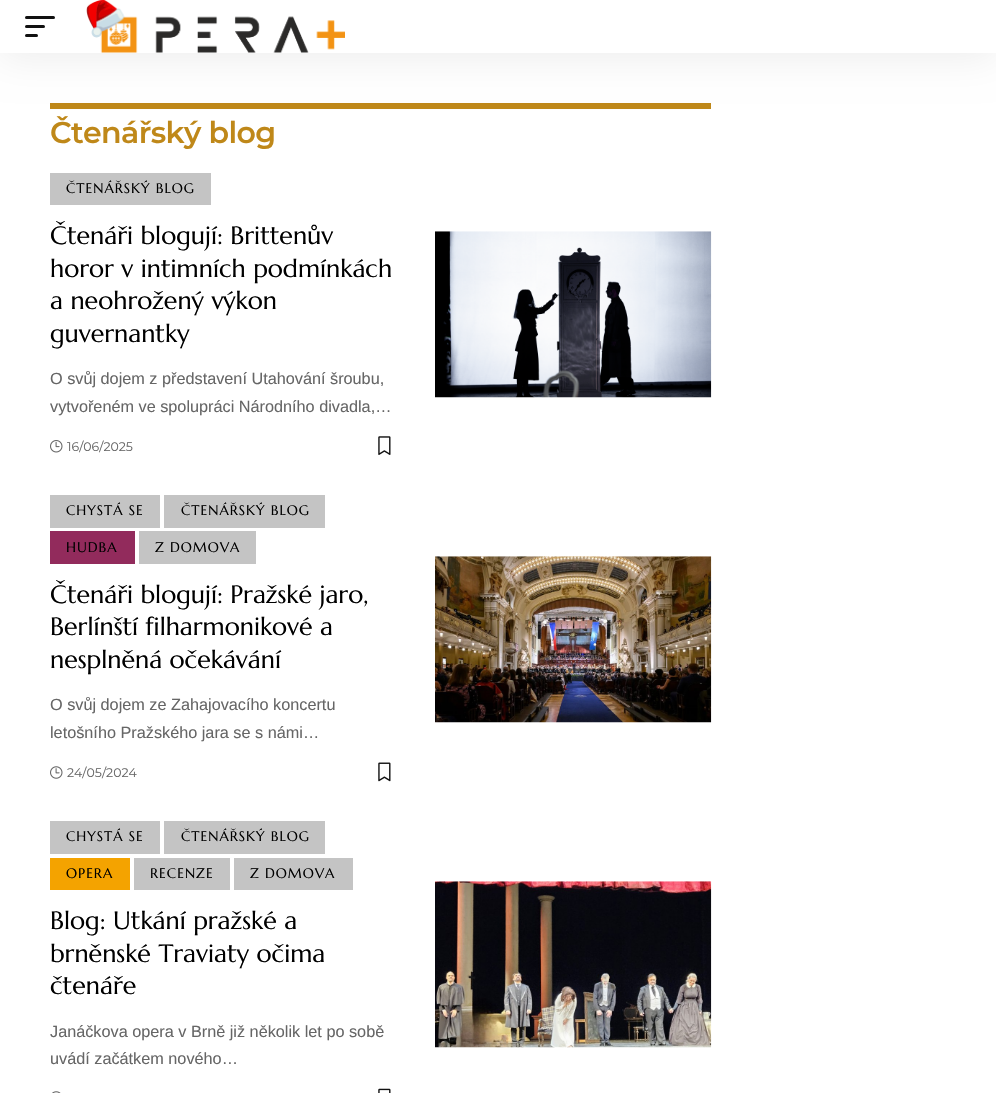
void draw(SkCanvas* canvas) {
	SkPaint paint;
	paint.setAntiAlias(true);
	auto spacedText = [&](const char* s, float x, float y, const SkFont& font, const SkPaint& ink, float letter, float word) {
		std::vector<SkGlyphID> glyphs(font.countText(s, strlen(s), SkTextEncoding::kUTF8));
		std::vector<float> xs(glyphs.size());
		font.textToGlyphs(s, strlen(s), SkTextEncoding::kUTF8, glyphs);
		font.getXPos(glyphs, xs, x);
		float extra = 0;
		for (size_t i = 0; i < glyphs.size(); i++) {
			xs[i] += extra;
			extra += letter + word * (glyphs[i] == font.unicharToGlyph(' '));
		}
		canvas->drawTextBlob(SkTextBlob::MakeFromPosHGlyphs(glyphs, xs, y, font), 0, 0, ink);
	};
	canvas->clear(0xffffffff);
	paint.setColor(0xffbf8819);
	canvas->drawRect(SkRect::MakeXYWH(50, 103, 661, 6), paint);
	paint.setColor(0x12000000);
	paint.setMaskFilter(SkMaskFilter::MakeBlur(kNormal_SkBlurStyle, 19));
	canvas->drawRect(SkRect::MakeXYWH(0, 5, 996, 53), paint);
	paint.setMaskFilter(nullptr);
	paint.setColor(0xffffffff);
	canvas->drawRect(SkRect::MakeXYWH(0, 0, 996, 53), paint);
	paint.setColor(0xff111111);
	canvas->drawRoundRect(SkRect::MakeXYWH(25, 16, 30, 3), 1.5, 1.5, paint);
	canvas->drawRoundRect(SkRect::MakeXYWH(25, 25, 20, 3), 1.5, 1.5, paint);
	canvas->drawRoundRect(SkRect::MakeXYWH(25, 34, 13, 3), 1.5, 1.5, paint);
	canvas->drawImageRect(SkImages::DeferredFromEncodedData(SkData::MakeFromFileName("img1.png")), SkRect::MakeXYWH(86, 0, 259, 53), SkSamplingOptions());
	SkFont f1(fontMgr->matchFamilyStyle("Montserrat", SkFontStyle(600, SkFontStyle::kNormal_Width, SkFontStyle::kUpright_Slant)), 30);
	f1.setSubpixel(true);
	paint.setColor(0xffbf8819);
	spacedText("Čtenářský blog", 50, 143, f1, paint, -0.6, 0);
	paint.setColor(0xffc4c4c4);
	canvas->drawRect(SkRect::MakeXYWH(50, 173, 161, 32), paint);
	SkFont f2(fontMgr->matchFamilyStyle("Marcellus", SkFontStyle::Normal()), 13.75);
	f2.setSubpixel(true);
	paint.setColor(0xff000000);
	spacedText("ČTENÁŘSKÝ BLOG", 66, 193, f2, paint, 1, 0);
	SkFont f3(fontMgr->matchFamilyStyle("Marcellus", SkFontStyle::Normal()), 25);
	f3.setSubpixel(true);
	canvas->drawString("Čtenáři blogují: Brittenův", 50, 244, f3, paint);
	canvas->drawString("horor v intimních podmínkách", 50, 277, f3, paint);
	canvas->drawString("a neohrožený výkon", 50, 309, f3, paint);
	canvas->drawString("guvernantky", 50, 342, f3, paint);
	SkFont f4(fontMgr->matchFamilyStyle("Liberation Sans", SkFontStyle::Normal()), 16.25);
	f4.setSubpixel(true);
	paint.setColor(0xff666666);
	canvas->drawString("O svůj dojem z představení Utahování šroubu,", 50, 384, f4, paint);
	canvas->drawString("vytvořeném ve spolupráci Národního divadla,…", 50, 412, f4, paint);
	canvas->drawImageRect(SkImages::DeferredFromEncodedData(SkData::MakeFromFileName("img2.png")), SkRect::MakeXYWH(50, 440, 13, 13), SkSamplingOptions());
	SkFont f5(fontMgr->matchFamilyStyle("Montserrat", SkFontStyle::Normal()), 12.5);
	f5.setSubpixel(true);
	canvas->drawString("16/06/2025", 67, 451, f5, paint);
	canvas->drawImageRect(SkImages::DeferredFromEncodedData(SkData::MakeFromFileName("img3.png")), SkRect::MakeXYWH(378, 436, 13, 19), SkSamplingOptions());
	canvas->drawImageRect(SkImages::DeferredFromEncodedData(SkData::MakeFromFileName("img4.png")), SkRect::MakeXYWH(435, 231, 277, 167), SkSamplingOptions());
	paint.setColor(0xffc4c4c4);
	canvas->drawRect(SkRect::MakeXYWH(50, 495, 110, 33), paint);
	paint.setColor(0xff000000);
	spacedText("CHYSTÁ SE", 66, 515, f2, paint, 1, 0);
	paint.setColor(0xffc4c4c4);
	canvas->drawRect(SkRect::MakeXYWH(164, 495, 161, 33), paint);
	paint.setColor(0xff000000);
	spacedText("ČTENÁŘSKÝ BLOG", 181, 515, f2, paint, 1, 0);
	paint.setColor(0xff922b5c);
	canvas->drawRect(SkRect::MakeXYWH(50, 531, 85, 33), paint);
	paint.setColor(0xff000000);
	spacedText("HUDBA", 66, 552, f2, paint, 1, 0);
	paint.setColor(0xffc4c4c4);
	canvas->drawRect(SkRect::MakeXYWH(139, 531, 117, 33), paint);
	paint.setColor(0xff000000);
	spacedText("Z DOMOVA", 155, 552, f2, paint, 1, 0);
	canvas->drawString("Čtenáři blogují: Pražské jaro,", 50, 603, f3, paint);
	canvas->drawString("Berlínští filharmonikové a", 50, 635, f3, paint);
	canvas->drawString("nesplněná očekávání", 50, 668, f3, paint);
	paint.setColor(0xff666666);
	canvas->drawString("O svůj dojem ze Zahajovacího koncertu", 50, 710, f4, paint);
	canvas->drawString("letošního Pražského jara se s námi…", 50, 738, f4, paint);
	canvas->drawImageRect(SkImages::DeferredFromEncodedData(SkData::MakeFromFileName("img5.png")), SkRect::MakeXYWH(50, 766, 13, 13), SkSamplingOptions());
	canvas->drawString("24/05/2024", 67, 777, f5, paint);
	canvas->drawImageRect(SkImages::DeferredFromEncodedData(SkData::MakeFromFileName("img6.png")), SkRect::MakeXYWH(378, 762, 13, 20), SkSamplingOptions());
	canvas->drawImageRect(SkImages::DeferredFromEncodedData(SkData::MakeFromFileName("img7.png")), SkRect::MakeXYWH(435, 556, 277, 167), SkSamplingOptions());
	paint.setColor(0xffc4c4c4);
	canvas->drawRect(SkRect::MakeXYWH(50, 821, 110, 33), paint);
	paint.setColor(0xff000000);
	spacedText("CHYSTÁ SE", 66, 841, f2, paint, 1, 0);
	paint.setColor(0xffc4c4c4);
	canvas->drawRect(SkRect::MakeXYWH(164, 821, 161, 33), paint);
	paint.setColor(0xff000000);
	spacedText("ČTENÁŘSKÝ BLOG", 181, 841, f2, paint, 1, 0);
	paint.setColor(0xfff4a300);
	canvas->drawRect(SkRect::MakeXYWH(50, 858, 80, 32), paint);
	paint.setColor(0xff000000);
	spacedText("OPERA", 66, 878, f2, paint, 1, 0);
	paint.setColor(0xffc4c4c4);
	canvas->drawRect(SkRect::MakeXYWH(134, 858, 96, 32), paint);
	paint.setColor(0xff000000);
	spacedText("RECENZE", 150, 878, f2, paint, 1, 0);
	paint.setColor(0xffc4c4c4);
	canvas->drawRect(SkRect::MakeXYWH(234, 858, 119, 32), paint);
	paint.setColor(0xff000000);
	spacedText("Z DOMOVA", 250, 878, f2, paint, 1, 0);
	canvas->drawString("Blog: Utkání pražské a", 50, 929, f3, paint);
	canvas->drawString("brněnské Traviaty očima", 50, 962, f3, paint);
	canvas->drawString("čtenáře", 50, 994, f3, paint);
	paint.setColor(0xff666666);
	canvas->drawString("Janáčkova opera v Brně již několik let po sobě", 50, 1037, f4, paint);
	canvas->drawString("uvádí začátkem nového…", 50, 1064, f4, paint);
	canvas->drawImageRect(SkImages::DeferredFromEncodedData(SkData::MakeFromFileName("img8.png")), SkRect::MakeXYWH(52, 1091, 9, 2), SkSamplingOptions());
	canvas->drawImageRect(SkImages::DeferredFromEncodedData(SkData::MakeFromFileName("img9.png")), SkRect::MakeXYWH(378, 1088, 13, 5), SkSamplingOptions());
	canvas->drawImageRect(SkImages::DeferredFromEncodedData(SkData::MakeFromFileName("img10.png")), SkRect::MakeXYWH(435, 881, 277, 167), SkSamplingOptions());
}
